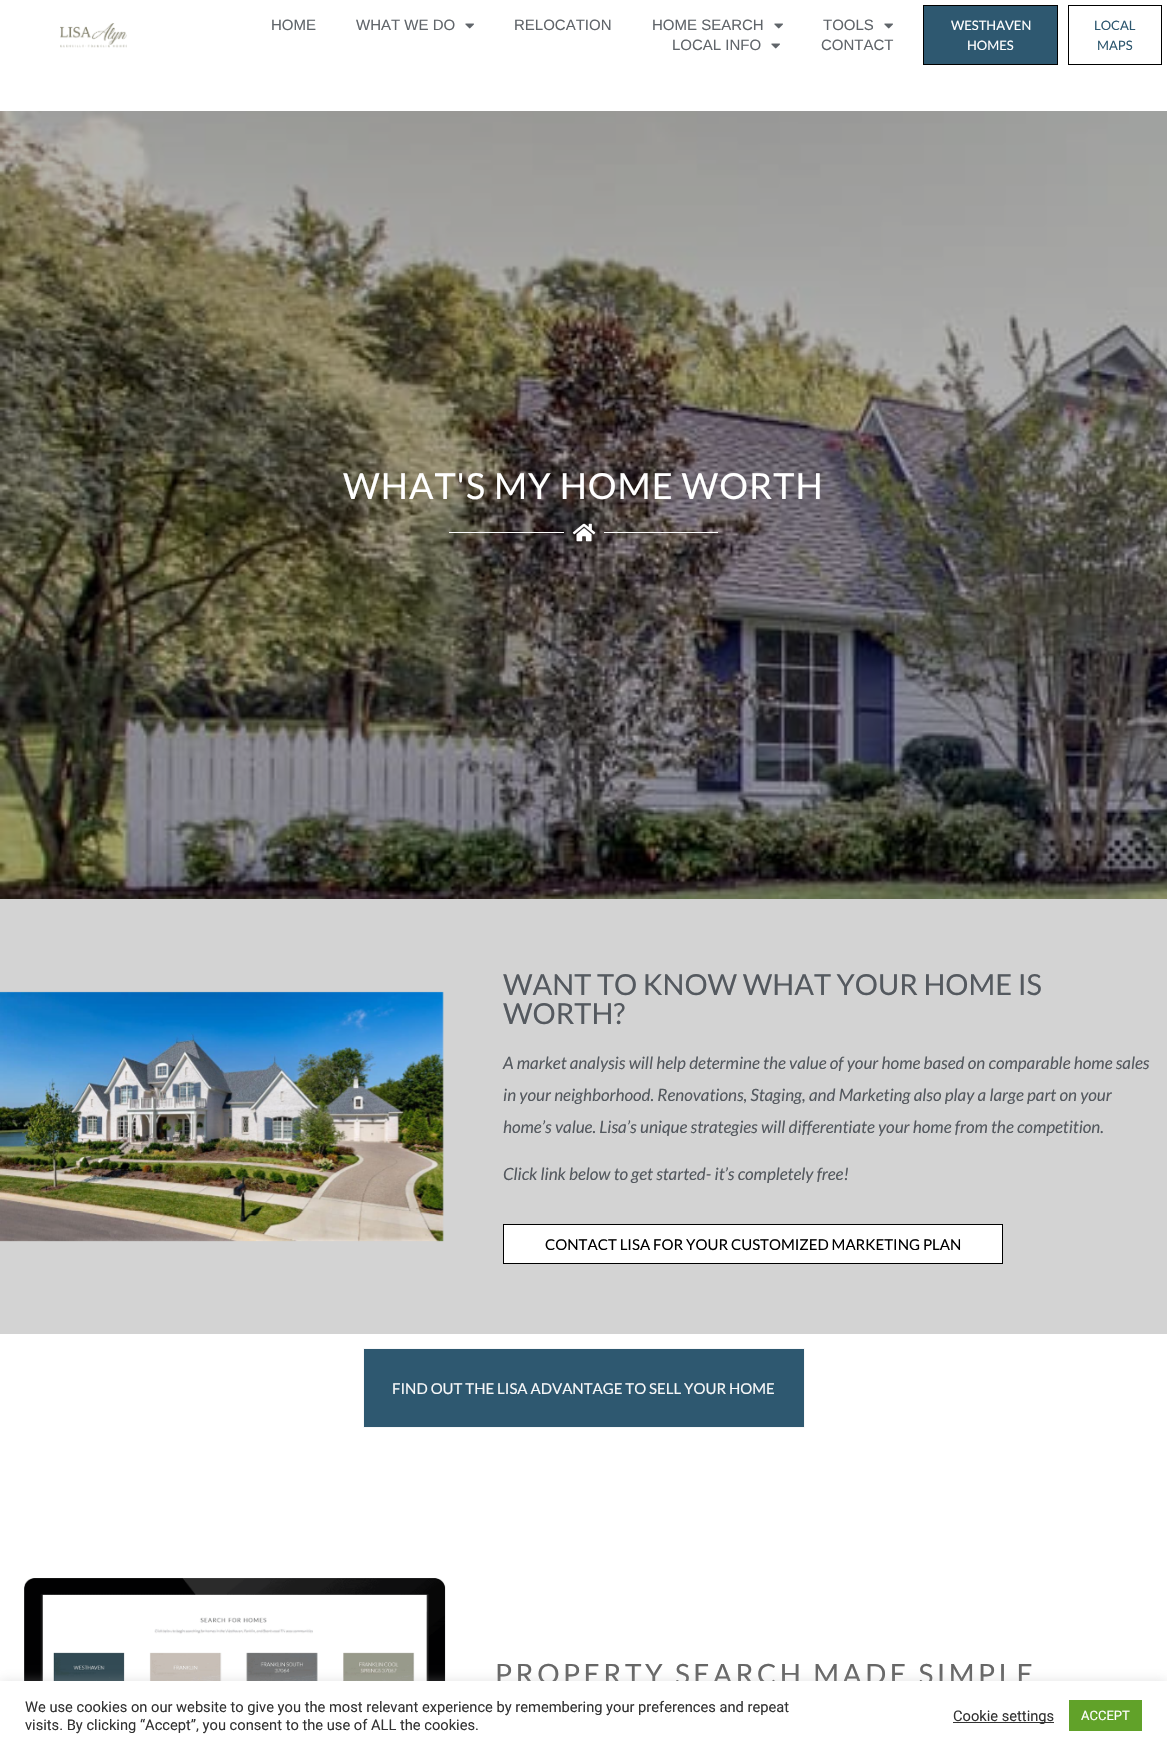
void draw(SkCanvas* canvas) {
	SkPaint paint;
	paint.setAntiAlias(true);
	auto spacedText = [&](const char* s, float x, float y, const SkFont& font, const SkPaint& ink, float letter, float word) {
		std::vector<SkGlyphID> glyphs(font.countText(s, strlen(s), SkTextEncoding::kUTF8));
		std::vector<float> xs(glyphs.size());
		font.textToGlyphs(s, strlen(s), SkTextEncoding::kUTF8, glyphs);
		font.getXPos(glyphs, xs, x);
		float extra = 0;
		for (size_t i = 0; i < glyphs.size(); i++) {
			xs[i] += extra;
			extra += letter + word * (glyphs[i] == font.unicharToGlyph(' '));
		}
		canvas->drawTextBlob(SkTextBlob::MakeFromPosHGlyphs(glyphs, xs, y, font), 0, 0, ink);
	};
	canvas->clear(0xffffffff);
	canvas->drawImageRect(SkImages::DeferredFromEncodedData(SkData::MakeFromFileName("img1.png")), SkRect::MakeXYWH(60, 23, 67, 25), SkSamplingOptions());
	SkFont f1(fontMgr->matchFamilyStyle("Liberation Sans", SkFontStyle::Normal()), 15);
	f1.setSubpixel(true);
	paint.setColor(0xff60656a);
	canvas->drawString("HOME", 271, 30, f1, paint);
	canvas->drawString("WHAT WE DO", 356, 30, f1, paint);
	canvas->drawImageRect(SkImages::DeferredFromEncodedData(SkData::MakeFromFileName("img2.png")), SkRect::MakeXYWH(465, 23, 9, 6), SkSamplingOptions());
	canvas->drawString("RELOCATION", 514, 30, f1, paint);
	canvas->drawString("HOME SEARCH", 652, 30, f1, paint);
	canvas->drawImageRect(SkImages::DeferredFromEncodedData(SkData::MakeFromFileName("img2.png")), SkRect::MakeXYWH(774, 23, 9, 6), SkSamplingOptions());
	canvas->drawString("TOOLS", 823, 30, f1, paint);
	canvas->drawImageRect(SkImages::DeferredFromEncodedData(SkData::MakeFromFileName("img2.png")), SkRect::MakeXYWH(884, 23, 9, 6), SkSamplingOptions());
	canvas->drawString("LOCAL INFO", 672, 50, f1, paint);
	canvas->drawImageRect(SkImages::DeferredFromEncodedData(SkData::MakeFromFileName("img2.png")), SkRect::MakeXYWH(771, 43, 9, 6), SkSamplingOptions());
	canvas->drawString("CONTACT", 821, 50, f1, paint);
	paint.setColor(0xff2e5870);
	canvas->drawRect(SkRect::MakeXYWH(923.5, 5.5, 134, 59), paint);
	paint.setStroke(true);
	paint.setStrokeWidth(1);
	paint.setColor(0xff000000);
	canvas->drawRect(SkRect::MakeXYWH(923.5, 5.5, 134, 59), paint);
	SkFont f2(fontMgr->matchFamilyStyle("Lato", SkFontStyle::Normal()), 13);
	f2.setSubpixel(true);
	paint.setStroke(false);
	paint.setColor(0xffffffff);
	canvas->drawString("WESTHAVEN", 951, 30, f2, paint);
	canvas->drawString("HOMES", 967, 50, f2, paint);
	paint.setStroke(true);
	paint.setColor(0xff000000);
	canvas->drawRect(SkRect::MakeXYWH(1068.5, 5.5, 93, 59), paint);
	paint.setStroke(false);
	paint.setColor(0xff2e5870);
	canvas->drawString("LOCAL", 1094, 30, f2, paint);
	canvas->drawString("MAPS", 1097, 50, f2, paint);
	canvas->drawImageRect(SkImages::DeferredFromEncodedData(SkData::MakeFromFileName("img3.png")), SkRect::MakeXYWH(0, 111, 1167, 788), SkSamplingOptions());
	SkFont f3(fontMgr->matchFamilyStyle("Lato", SkFontStyle::Normal()), 36);
	f3.setSubpixel(true);
	paint.setColor(0xffffffff);
	spacedText("WHAT'S MY HOME WORTH", 343, 499, f3, paint, 1, 0);
	canvas->drawRect(SkRect::MakeXYWH(449, 532, 115, 1), paint);
	canvas->drawImageRect(SkImages::DeferredFromEncodedData(SkData::MakeFromFileName("img4.png")), SkRect::MakeXYWH(572, 523, 24, 19), SkSamplingOptions());
	canvas->drawRect(SkRect::MakeXYWH(604, 532, 114, 1), paint);
	paint.setColor(0xffd3d3d3);
	canvas->drawRect(SkRect::MakeXYWH(0, 899, 1167, 435), paint);
	canvas->drawImageRect(SkImages::DeferredFromEncodedData(SkData::MakeFromFileName("img5.png")), SkRect::MakeXYWH(0, 991, 444, 251), SkSamplingOptions());
	SkFont f4(fontMgr->matchFamilyStyle("Lato", SkFontStyle::Normal()), 29);
	f4.setSubpixel(true);
	paint.setColor(0xff54595f);
	canvas->drawString("WANT TO KNOW WHAT YOUR HOME IS", 503, 995, f4, paint);
	canvas->drawString("WORTH?", 503, 1024, f4, paint);
	SkFont f5(fontMgr->matchFamilyStyle("Lato", SkFontStyle::Italic()), 17);
	f5.setSubpixel(true);
	canvas->drawString("A market analysis will help determine the value of your home based on comparable home sales", 503, 1069, f5, paint);
	canvas->drawString("in your neighborhood. Renovations, Staging, and Marketing also play a large part on your", 503, 1101, f5, paint);
	canvas->drawString("home’s value. Lisa’s unique strategies will differentiate your home from the competition.", 503, 1133, f5, paint);
	canvas->drawString("Click link below to get started- it’s completely free!", 503, 1180, f5, paint);
	paint.setColor(0xffffffff);
	canvas->drawRect(SkRect::MakeXYWH(503.5, 1224.5, 499, 39), paint);
	paint.setStroke(true);
	paint.setColor(0xff000000);
	canvas->drawRect(SkRect::MakeXYWH(503.5, 1224.5, 499, 39), paint);
	SkFont f6(fontMgr->matchFamilyStyle("Lato", SkFontStyle::Normal()), 15);
	f6.setSubpixel(true);
	paint.setStroke(false);
	canvas->drawString("CONTACT LISA FOR YOUR CUSTOMIZED MARKETING PLAN", 545, 1250, f6, paint);
	paint.setColor(0xff2e5870);
	canvas->drawRect(SkRect::MakeXYWH(363.5, 1348.5, 441, 79), paint);
	paint.setStroke(true);
	paint.setColor(0xfff7f8f9);
	canvas->drawRect(SkRect::MakeXYWH(363.5, 1348.5, 441, 79), paint);
	paint.setStroke(false);
	canvas->drawString("FIND OUT THE LISA ADVANTAGE TO SELL YOUR HOME", 392, 1394, f6, paint);
	canvas->drawImageRect(SkImages::DeferredFromEncodedData(SkData::MakeFromFileName("img6.png")), SkRect::MakeXYWH(24, 1578, 422, 103), SkSamplingOptions());
	SkFont f7(fontMgr->matchFamilyStyle("Lato", SkFontStyle::Normal()), 28);
	f7.setSubpixel(true);
	paint.setColor(0xff666666);
	spacedText("PROPERTY SEARCH MADE SIMPLE", 495, 1684, f7, paint, 3.5, 0);
	paint.setColor(0x4dacabab);
	paint.setMaskFilter(SkMaskFilter::MakeBlur(kNormal_SkBlurStyle, 5));
	canvas->drawRect(SkRect::MakeXYWH(0, 1680, 1167, 69), paint);
	paint.setMaskFilter(nullptr);
	paint.setColor(0xffffffff);
	canvas->drawRect(SkRect::MakeXYWH(0, 1681, 1167, 69), paint);
	SkFont f8(fontMgr->matchFamilyStyle("Roboto", SkFontStyle::Normal()), 14.67);
	f8.setSubpixel(true);
	paint.setColor(0xff333333);
	canvas->drawString("We use cookies on our website to give you the most relevant experience by remembering your preferences and repeat", 25, 1712, f8, paint);
	canvas->drawString("visits. By clicking “Accept”, you consent to the use of ALL the cookies.", 25, 1730, f8, paint);
	canvas->drawRect(SkRect::MakeXYWH(953, 1722, 101, 1), paint);
	canvas->drawString("Cookie settings", 953, 1721, f8, paint);
	paint.setColor(0xff61a229);
	canvas->drawRect(SkRect::MakeXYWH(1069, 1700, 73, 31), paint);
	SkFont f9(fontMgr->matchFamilyStyle("Roboto", SkFontStyle::Normal()), 13);
	f9.setSubpixel(true);
	paint.setColor(0xffffffff);
	canvas->drawString("ACCEPT", 1081, 1720, f9, paint);
}
